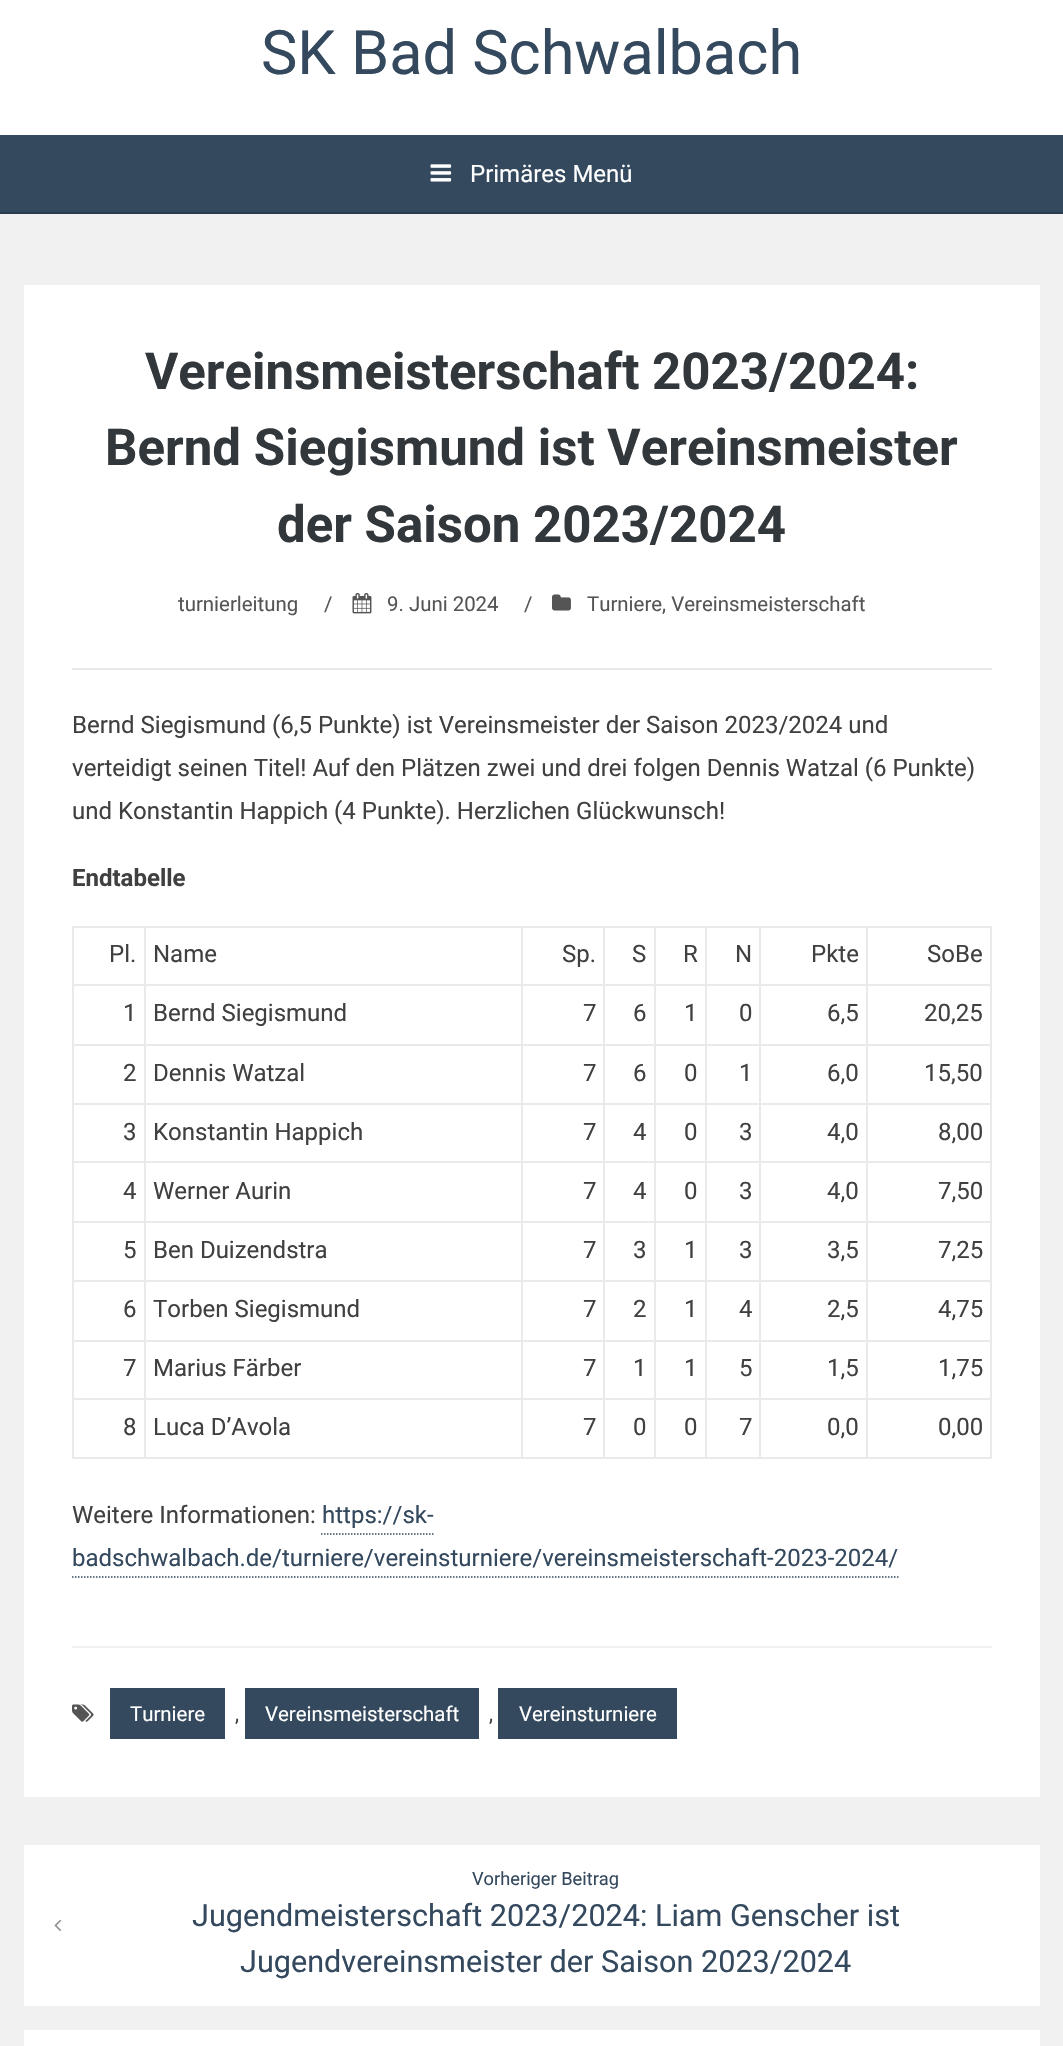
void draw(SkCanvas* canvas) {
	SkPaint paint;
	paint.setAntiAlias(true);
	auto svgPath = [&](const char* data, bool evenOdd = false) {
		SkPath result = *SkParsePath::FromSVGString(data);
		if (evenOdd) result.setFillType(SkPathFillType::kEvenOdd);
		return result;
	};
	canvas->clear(0xfff1f1f1);
	paint.setColor(0xffffffff);
	canvas->drawRect(SkRect::MakeXYWH(0, 0, 1063, 135), paint);
	SkFont f1(fontMgr->matchFamilyStyle("Roboto", SkFontStyle::Normal()), 61.25);
	f1.setSubpixel(true);
	paint.setColor(0xff34495e);
	canvas->drawString("SK Bad Schwalbach", 261, 74, f1, paint);
	canvas->drawRect(SkRect::MakeXYWH(0, 135, 1063, 77), paint);
	paint.setColor(0xff293b4c);
	canvas->drawRect(SkRect::MakeXYWH(0, 212, 1063, 2), paint);
	canvas->drawImageRect(SkImages::DeferredFromEncodedData(SkData::MakeFromFileName("img1.png")), SkRect::MakeXYWH(430, 164, 22, 18), SkSamplingOptions());
	SkFont f2(fontMgr->matchFamilyStyle("Roboto", SkFontStyle::Normal()), 24);
	f2.setSubpixel(true);
	paint.setColor(0xffffffff);
	canvas->drawString("Primäres Menü", 470, 182, f2, paint);
	canvas->drawRect(SkRect::MakeXYWH(24, 285, 1016, 1512), paint);
	paint.setColor(0xffeaeaea);
	canvas->drawRect(SkRect::MakeXYWH(72, 668, 920, 2), paint);
	SkFont f3(fontMgr->matchFamilyStyle("Roboto", SkFontStyle::Bold()), 51);
	f3.setSubpixel(true);
	paint.setColor(0xff32373c);
	canvas->drawString("Vereinsmeisterschaft 2023/2024:", 145, 389, f3, paint);
	canvas->drawString("Bernd Siegismund ist Vereinsmeister", 105, 465, f3, paint);
	canvas->drawString("der Saison 2023/2024", 277, 542, f3, paint);
	SkFont f4(fontMgr->matchFamilyStyle("Roboto", SkFontStyle::Normal()), 20.4);
	f4.setSubpixel(true);
	paint.setColor(0xff555555);
	canvas->drawString("turnierleitung", 178, 611, f4, paint);
	canvas->drawString("/", 324, 611, f4, paint);
	canvas->drawImageRect(SkImages::DeferredFromEncodedData(SkData::MakeFromFileName("img2.png")), SkRect::MakeXYWH(352, 593, 20, 21), SkSamplingOptions());
	canvas->drawString("9. Juni 2024", 387, 611, f4, paint);
	canvas->drawString("/", 524, 611, f4, paint);
	canvas->drawImageRect(SkImages::DeferredFromEncodedData(SkData::MakeFromFileName("img3.png")), SkRect::MakeXYWH(552, 594, 19, 17), SkSamplingOptions());
	canvas->drawString("Turniere, Vereinsmeisterschaft", 587, 611, f4, paint);
	paint.setColor(0xff404040);
	canvas->drawString("Bernd Siegismund (6,5 Punkte) ist Vereinsmeister der Saison 2023/2024 und", 72, 733, f2, paint);
	canvas->drawString("verteidigt seinen Titel! Auf den Plätzen zwei und drei folgen Dennis Watzal (6 Punkte)", 72, 776, f2, paint);
	canvas->drawString("und Konstantin Happich (4 Punkte). Herzlichen Glückwunsch!", 72, 819, f2, paint);
	SkFont f5(fontMgr->matchFamilyStyle("Roboto", SkFontStyle::Bold()), 24);
	f5.setSubpixel(true);
	canvas->drawString("Endtabelle", 72, 886, f5, paint);
	paint.setColor(0xffeaeaea);
	canvas->drawRect(SkRect::MakeXYWH(72, 926, 920, 2), paint);
	canvas->drawRect(SkRect::MakeXYWH(990, 926, 2, 532), paint);
	canvas->drawRect(SkRect::MakeXYWH(72, 1457, 920, 2), paint);
	canvas->drawRect(SkRect::MakeXYWH(72, 926, 2, 532), paint);
	paint.setColor(0xff404040);
	canvas->drawString("Pl.", 109, 962, f2, paint);
	paint.setColor(0xffeaeaea);
	canvas->drawRect(SkRect::MakeXYWH(866, 984, 126, 2), paint);
	canvas->drawRect(SkRect::MakeXYWH(866, 1044, 126, 2), paint);
	canvas->drawRect(SkRect::MakeXYWH(866, 1103, 126, 2), paint);
	canvas->drawRect(SkRect::MakeXYWH(866, 1161, 126, 2), paint);
	canvas->drawRect(SkRect::MakeXYWH(866, 1221, 126, 2), paint);
	canvas->drawRect(SkRect::MakeXYWH(866, 1280, 126, 2), paint);
	canvas->drawRect(SkRect::MakeXYWH(866, 1340, 126, 2), paint);
	canvas->drawRect(SkRect::MakeXYWH(866, 1398, 126, 2), paint);
	canvas->drawRect(SkRect::MakeXYWH(866, 1398, 2, 60), paint);
	canvas->drawRect(SkRect::MakeXYWH(759, 1398, 108, 2), paint);
	canvas->drawRect(SkRect::MakeXYWH(866, 1340, 2, 60), paint);
	canvas->drawRect(SkRect::MakeXYWH(759, 1340, 108, 2), paint);
	canvas->drawRect(SkRect::MakeXYWH(866, 1280, 2, 61), paint);
	canvas->drawRect(SkRect::MakeXYWH(759, 1280, 108, 2), paint);
	canvas->drawRect(SkRect::MakeXYWH(866, 1221, 2, 60), paint);
	canvas->drawRect(SkRect::MakeXYWH(759, 1221, 108, 2), paint);
	canvas->drawRect(SkRect::MakeXYWH(866, 1161, 2, 62), paint);
	canvas->drawRect(SkRect::MakeXYWH(759, 1161, 108, 2), paint);
	canvas->drawRect(SkRect::MakeXYWH(866, 1103, 2, 60), paint);
	canvas->drawRect(SkRect::MakeXYWH(759, 1103, 108, 2), paint);
	canvas->drawRect(SkRect::MakeXYWH(866, 1044, 2, 60), paint);
	canvas->drawRect(SkRect::MakeXYWH(759, 1044, 108, 2), paint);
	canvas->drawRect(SkRect::MakeXYWH(866, 984, 2, 62), paint);
	canvas->drawRect(SkRect::MakeXYWH(759, 984, 108, 2), paint);
	canvas->drawRect(SkRect::MakeXYWH(759, 1398, 2, 60), paint);
	canvas->drawRect(SkRect::MakeXYWH(705, 1398, 56, 2), paint);
	canvas->drawRect(SkRect::MakeXYWH(759, 1340, 2, 60), paint);
	canvas->drawRect(SkRect::MakeXYWH(705, 1340, 56, 2), paint);
	canvas->drawRect(SkRect::MakeXYWH(759, 1280, 2, 61), paint);
	canvas->drawRect(SkRect::MakeXYWH(705, 1280, 56, 2), paint);
	canvas->drawRect(SkRect::MakeXYWH(759, 1221, 2, 60), paint);
	canvas->drawRect(SkRect::MakeXYWH(705, 1221, 56, 2), paint);
	canvas->drawRect(SkRect::MakeXYWH(759, 1161, 2, 62), paint);
	canvas->drawRect(SkRect::MakeXYWH(705, 1161, 56, 2), paint);
	canvas->drawRect(SkRect::MakeXYWH(759, 1103, 2, 60), paint);
	canvas->drawRect(SkRect::MakeXYWH(705, 1103, 56, 2), paint);
	canvas->drawRect(SkRect::MakeXYWH(759, 1044, 2, 60), paint);
	canvas->drawRect(SkRect::MakeXYWH(705, 1044, 56, 2), paint);
	canvas->drawRect(SkRect::MakeXYWH(759, 984, 2, 62), paint);
	canvas->drawRect(SkRect::MakeXYWH(705, 984, 56, 2), paint);
	canvas->drawRect(SkRect::MakeXYWH(705, 1398, 2, 60), paint);
	canvas->drawRect(SkRect::MakeXYWH(654, 1398, 53, 2), paint);
	canvas->drawRect(SkRect::MakeXYWH(705, 1340, 2, 60), paint);
	canvas->drawRect(SkRect::MakeXYWH(654, 1340, 53, 2), paint);
	canvas->drawRect(SkRect::MakeXYWH(705, 1280, 2, 61), paint);
	canvas->drawRect(SkRect::MakeXYWH(654, 1280, 53, 2), paint);
	canvas->drawRect(SkRect::MakeXYWH(705, 1221, 2, 60), paint);
	canvas->drawRect(SkRect::MakeXYWH(654, 1221, 53, 2), paint);
	canvas->drawRect(SkRect::MakeXYWH(705, 1161, 2, 62), paint);
	canvas->drawRect(SkRect::MakeXYWH(654, 1161, 53, 2), paint);
	canvas->drawRect(SkRect::MakeXYWH(705, 1103, 2, 60), paint);
	canvas->drawRect(SkRect::MakeXYWH(654, 1103, 53, 2), paint);
	canvas->drawRect(SkRect::MakeXYWH(705, 1044, 2, 60), paint);
	canvas->drawRect(SkRect::MakeXYWH(654, 1044, 53, 2), paint);
	canvas->drawRect(SkRect::MakeXYWH(705, 984, 2, 62), paint);
	canvas->drawRect(SkRect::MakeXYWH(654, 984, 53, 2), paint);
	canvas->drawRect(SkRect::MakeXYWH(654, 1398, 2, 60), paint);
	canvas->drawRect(SkRect::MakeXYWH(603, 1398, 53, 2), paint);
	canvas->drawRect(SkRect::MakeXYWH(654, 1340, 2, 60), paint);
	canvas->drawRect(SkRect::MakeXYWH(603, 1340, 53, 2), paint);
	canvas->drawRect(SkRect::MakeXYWH(654, 1280, 2, 61), paint);
	canvas->drawRect(SkRect::MakeXYWH(603, 1280, 53, 2), paint);
	canvas->drawRect(SkRect::MakeXYWH(654, 1221, 2, 60), paint);
	canvas->drawRect(SkRect::MakeXYWH(603, 1221, 53, 2), paint);
	canvas->drawRect(SkRect::MakeXYWH(654, 1161, 2, 62), paint);
	canvas->drawRect(SkRect::MakeXYWH(603, 1161, 53, 2), paint);
	canvas->drawRect(SkRect::MakeXYWH(654, 1103, 2, 60), paint);
	canvas->drawRect(SkRect::MakeXYWH(603, 1103, 53, 2), paint);
	canvas->drawRect(SkRect::MakeXYWH(654, 1044, 2, 60), paint);
	canvas->drawRect(SkRect::MakeXYWH(603, 1044, 53, 2), paint);
	canvas->drawRect(SkRect::MakeXYWH(654, 984, 2, 62), paint);
	canvas->drawRect(SkRect::MakeXYWH(603, 984, 53, 2), paint);
	canvas->drawRect(SkRect::MakeXYWH(603, 1398, 2, 60), paint);
	canvas->drawRect(SkRect::MakeXYWH(521, 1398, 84, 2), paint);
	canvas->drawRect(SkRect::MakeXYWH(603, 1340, 2, 60), paint);
	canvas->drawRect(SkRect::MakeXYWH(521, 1340, 84, 2), paint);
	canvas->drawRect(SkRect::MakeXYWH(603, 1280, 2, 61), paint);
	canvas->drawRect(SkRect::MakeXYWH(521, 1280, 84, 2), paint);
	canvas->drawRect(SkRect::MakeXYWH(603, 1221, 2, 60), paint);
	canvas->drawRect(SkRect::MakeXYWH(521, 1221, 84, 2), paint);
	canvas->drawRect(SkRect::MakeXYWH(603, 1161, 2, 62), paint);
	canvas->drawRect(SkRect::MakeXYWH(521, 1161, 84, 2), paint);
	canvas->drawRect(SkRect::MakeXYWH(603, 1103, 2, 60), paint);
	canvas->drawRect(SkRect::MakeXYWH(521, 1103, 84, 2), paint);
	canvas->drawRect(SkRect::MakeXYWH(603, 1044, 2, 60), paint);
	canvas->drawRect(SkRect::MakeXYWH(521, 1044, 84, 2), paint);
	canvas->drawRect(SkRect::MakeXYWH(603, 984, 2, 62), paint);
	canvas->drawRect(SkRect::MakeXYWH(521, 984, 84, 2), paint);
	canvas->drawRect(SkRect::MakeXYWH(521, 1398, 2, 60), paint);
	canvas->drawRect(SkRect::MakeXYWH(144, 1398, 378, 2), paint);
	canvas->drawRect(SkRect::MakeXYWH(521, 1340, 2, 60), paint);
	canvas->drawRect(SkRect::MakeXYWH(144, 1340, 378, 2), paint);
	canvas->drawRect(SkRect::MakeXYWH(521, 1280, 2, 61), paint);
	canvas->drawRect(SkRect::MakeXYWH(144, 1280, 378, 2), paint);
	canvas->drawRect(SkRect::MakeXYWH(521, 1221, 2, 60), paint);
	canvas->drawRect(SkRect::MakeXYWH(144, 1221, 378, 2), paint);
	canvas->drawRect(SkRect::MakeXYWH(521, 1161, 2, 62), paint);
	canvas->drawRect(SkRect::MakeXYWH(144, 1161, 378, 2), paint);
	canvas->drawRect(SkRect::MakeXYWH(521, 1103, 2, 60), paint);
	canvas->drawRect(SkRect::MakeXYWH(144, 1103, 378, 2), paint);
	canvas->drawRect(SkRect::MakeXYWH(521, 1044, 2, 60), paint);
	canvas->drawRect(SkRect::MakeXYWH(144, 1044, 378, 2), paint);
	canvas->drawRect(SkRect::MakeXYWH(521, 984, 2, 62), paint);
	canvas->drawRect(SkRect::MakeXYWH(144, 984, 378, 2), paint);
	canvas->drawRect(SkRect::MakeXYWH(144, 1398, 2, 60), paint);
	canvas->drawRect(SkRect::MakeXYWH(72, 1398, 74, 2), paint);
	canvas->drawRect(SkRect::MakeXYWH(144, 1340, 2, 60), paint);
	canvas->drawRect(SkRect::MakeXYWH(72, 1340, 74, 2), paint);
	canvas->drawRect(SkRect::MakeXYWH(144, 1280, 2, 61), paint);
	canvas->drawRect(SkRect::MakeXYWH(72, 1280, 74, 2), paint);
	canvas->drawRect(SkRect::MakeXYWH(144, 1221, 2, 60), paint);
	canvas->drawRect(SkRect::MakeXYWH(72, 1221, 74, 2), paint);
	canvas->drawRect(SkRect::MakeXYWH(144, 1161, 2, 62), paint);
	canvas->drawRect(SkRect::MakeXYWH(72, 1161, 74, 2), paint);
	canvas->drawRect(SkRect::MakeXYWH(144, 1103, 2, 60), paint);
	canvas->drawRect(SkRect::MakeXYWH(72, 1103, 74, 2), paint);
	canvas->drawRect(SkRect::MakeXYWH(144, 1044, 2, 60), paint);
	canvas->drawRect(SkRect::MakeXYWH(72, 1044, 74, 2), paint);
	canvas->drawRect(SkRect::MakeXYWH(144, 984, 2, 62), paint);
	canvas->drawRect(SkRect::MakeXYWH(72, 984, 74, 2), paint);
	canvas->drawRect(SkRect::MakeXYWH(144, 926, 2, 60), paint);
	paint.setColor(0xff404040);
	canvas->drawString("Name", 153, 962, f2, paint);
	paint.setColor(0xffeaeaea);
	canvas->drawRect(SkRect::MakeXYWH(521, 926, 2, 60), paint);
	paint.setColor(0xff404040);
	canvas->drawString("Sp.", 562, 962, f2, paint);
	paint.setColor(0xffeaeaea);
	canvas->drawRect(SkRect::MakeXYWH(603, 926, 2, 60), paint);
	paint.setColor(0xff404040);
	canvas->drawString("S", 632, 962, f2, paint);
	paint.setColor(0xffeaeaea);
	canvas->drawRect(SkRect::MakeXYWH(654, 926, 2, 60), paint);
	paint.setColor(0xff404040);
	canvas->drawString("R", 683, 962, f2, paint);
	paint.setColor(0xffeaeaea);
	canvas->drawRect(SkRect::MakeXYWH(705, 926, 2, 60), paint);
	paint.setColor(0xff404040);
	canvas->drawString("N", 735, 962, f2, paint);
	paint.setColor(0xffeaeaea);
	canvas->drawRect(SkRect::MakeXYWH(759, 926, 2, 60), paint);
	paint.setColor(0xff404040);
	canvas->drawString("Pkte", 811, 962, f2, paint);
	paint.setColor(0xffeaeaea);
	canvas->drawRect(SkRect::MakeXYWH(866, 926, 2, 60), paint);
	paint.setColor(0xff404040);
	canvas->drawString("SoBe", 927, 962, f2, paint);
	canvas->drawString("1", 123, 1021, f2, paint);
	canvas->drawString("Bernd Siegismund", 153, 1021, f2, paint);
	canvas->drawString("7", 583, 1021, f2, paint);
	canvas->drawString("6", 633, 1021, f2, paint);
	canvas->drawString("1", 684, 1021, f2, paint);
	canvas->drawString("0", 739, 1021, f2, paint);
	canvas->drawString("6,5", 827, 1021, f2, paint);
	canvas->drawString("20,25", 924, 1021, f2, paint);
	canvas->drawString("2", 123, 1081, f2, paint);
	canvas->drawString("Dennis Watzal", 153, 1081, f2, paint);
	canvas->drawString("7", 583, 1081, f2, paint);
	canvas->drawString("6", 633, 1081, f2, paint);
	canvas->drawString("0", 684, 1081, f2, paint);
	canvas->drawString("1", 739, 1081, f2, paint);
	canvas->drawString("6,0", 827, 1081, f2, paint);
	canvas->drawString("15,50", 924, 1081, f2, paint);
	canvas->drawString("3", 123, 1140, f2, paint);
	canvas->drawString("Konstantin Happich", 153, 1140, f2, paint);
	canvas->drawString("7", 583, 1140, f2, paint);
	canvas->drawString("4", 633, 1140, f2, paint);
	canvas->drawString("0", 684, 1140, f2, paint);
	canvas->drawString("3", 739, 1140, f2, paint);
	canvas->drawString("4,0", 827, 1140, f2, paint);
	canvas->drawString("8,00", 938, 1140, f2, paint);
	canvas->drawString("4", 123, 1199, f2, paint);
	canvas->drawString("Werner Aurin", 153, 1199, f2, paint);
	canvas->drawString("7", 583, 1199, f2, paint);
	canvas->drawString("4", 633, 1199, f2, paint);
	canvas->drawString("0", 684, 1199, f2, paint);
	canvas->drawString("3", 739, 1199, f2, paint);
	canvas->drawString("4,0", 827, 1199, f2, paint);
	canvas->drawString("7,50", 938, 1199, f2, paint);
	canvas->drawString("5", 123, 1258, f2, paint);
	canvas->drawString("Ben Duizendstra", 153, 1258, f2, paint);
	canvas->drawString("7", 583, 1258, f2, paint);
	canvas->drawString("3", 633, 1258, f2, paint);
	canvas->drawString("1", 684, 1258, f2, paint);
	canvas->drawString("3", 739, 1258, f2, paint);
	canvas->drawString("3,5", 827, 1258, f2, paint);
	canvas->drawString("7,25", 938, 1258, f2, paint);
	canvas->drawString("6", 123, 1317, f2, paint);
	canvas->drawString("Torben Siegismund", 153, 1317, f2, paint);
	canvas->drawString("7", 583, 1317, f2, paint);
	canvas->drawString("2", 633, 1317, f2, paint);
	canvas->drawString("1", 684, 1317, f2, paint);
	canvas->drawString("4", 739, 1317, f2, paint);
	canvas->drawString("2,5", 827, 1317, f2, paint);
	canvas->drawString("4,75", 938, 1317, f2, paint);
	canvas->drawString("7", 123, 1376, f2, paint);
	canvas->drawString("Marius Färber", 153, 1376, f2, paint);
	canvas->drawString("7", 583, 1376, f2, paint);
	canvas->drawString("1", 633, 1376, f2, paint);
	canvas->drawString("1", 684, 1376, f2, paint);
	canvas->drawString("5", 739, 1376, f2, paint);
	canvas->drawString("1,5", 827, 1376, f2, paint);
	canvas->drawString("1,75", 938, 1376, f2, paint);
	canvas->drawString("8", 123, 1435, f2, paint);
	canvas->drawString("Luca D’Avola", 153, 1435, f2, paint);
	canvas->drawString("7", 583, 1435, f2, paint);
	canvas->drawString("0", 633, 1435, f2, paint);
	canvas->drawString("0", 684, 1435, f2, paint);
	canvas->drawString("7", 739, 1435, f2, paint);
	canvas->drawString("0,0", 827, 1435, f2, paint);
	canvas->drawString("0,00", 938, 1435, f2, paint);
	canvas->drawString("Weitere Informationen:", 72, 1523, f2, paint);
	paint.setColor(0xff34495e);
	canvas->drawString("https://sk-", 322, 1523, f2, paint);
	paint.setStroke(true);
	paint.setStrokeWidth(1.5);
	paint.setPathEffect(SkDashPathEffect::Make({{1.5f, 1.5f}}, 0));
	canvas->drawPath(svgPath("M321 1534H433.5"), paint);
	paint.setPathEffect(nullptr);
	paint.setStroke(false);
	canvas->drawString("badschwalbach.de/turniere/vereinsturniere/vereinsmeisterschaft-2023-2024/", 72, 1566, f2, paint);
	paint.setStroke(true);
	paint.setPathEffect(SkDashPathEffect::Make({{1.5f, 1.5f}}, 0));
	canvas->drawPath(svgPath("M72 1577H898.5"), paint);
	paint.setPathEffect(nullptr);
	paint.setStroke(false);
	paint.setColor(0xfff1f1f1);
	canvas->drawRect(SkRect::MakeXYWH(72, 1646, 920, 2), paint);
	canvas->drawImageRect(SkImages::DeferredFromEncodedData(SkData::MakeFromFileName("img4.png")), SkRect::MakeXYWH(72, 1704, 22, 18), SkSamplingOptions());
	paint.setColor(0xff34495e);
	canvas->drawRect(SkRect::MakeXYWH(110, 1688, 115, 51), paint);
	paint.setColor(0xffffffff);
	canvas->drawString("Turniere", 130, 1721, f4, paint);
	paint.setColor(0xff404040);
	canvas->drawString(",", 235, 1721, f4, paint);
	paint.setColor(0xff34495e);
	canvas->drawRect(SkRect::MakeXYWH(245, 1688, 234, 51), paint);
	paint.setColor(0xffffffff);
	canvas->drawString("Vereinsmeisterschaft", 265, 1721, f4, paint);
	paint.setColor(0xff404040);
	canvas->drawString(",", 489, 1721, f4, paint);
	paint.setColor(0xff34495e);
	canvas->drawRect(SkRect::MakeXYWH(498, 1688, 179, 51), paint);
	paint.setColor(0xffffffff);
	canvas->drawString("Vereinsturniere", 519, 1721, f4, paint);
	canvas->drawRect(SkRect::MakeXYWH(24, 1845, 1016, 161), paint);
	canvas->drawImageRect(SkImages::DeferredFromEncodedData(SkData::MakeFromFileName("img5.png")), SkRect::MakeXYWH(54, 1919, 8, 13), SkSamplingOptions());
	SkFont f6(fontMgr->matchFamilyStyle("Roboto", SkFontStyle::Normal()), 18.25);
	f6.setSubpixel(true);
	paint.setColor(0xff34495e);
	canvas->drawString("Vorheriger Beitrag", 472, 1885, f6, paint);
	SkFont f7(fontMgr->matchFamilyStyle("Roboto", SkFontStyle::Normal()), 30.6);
	f7.setSubpixel(true);
	canvas->drawString("Jugendmeisterschaft 2023/2024: Liam Genscher ist", 192, 1926, f7, paint);
	canvas->drawString("Jugendvereinsmeister der Saison 2023/2024", 240, 1972, f7, paint);
	paint.setColor(0xffffffff);
	canvas->drawRect(SkRect::MakeXYWH(24, 2030, 1016, 16), paint);
}
